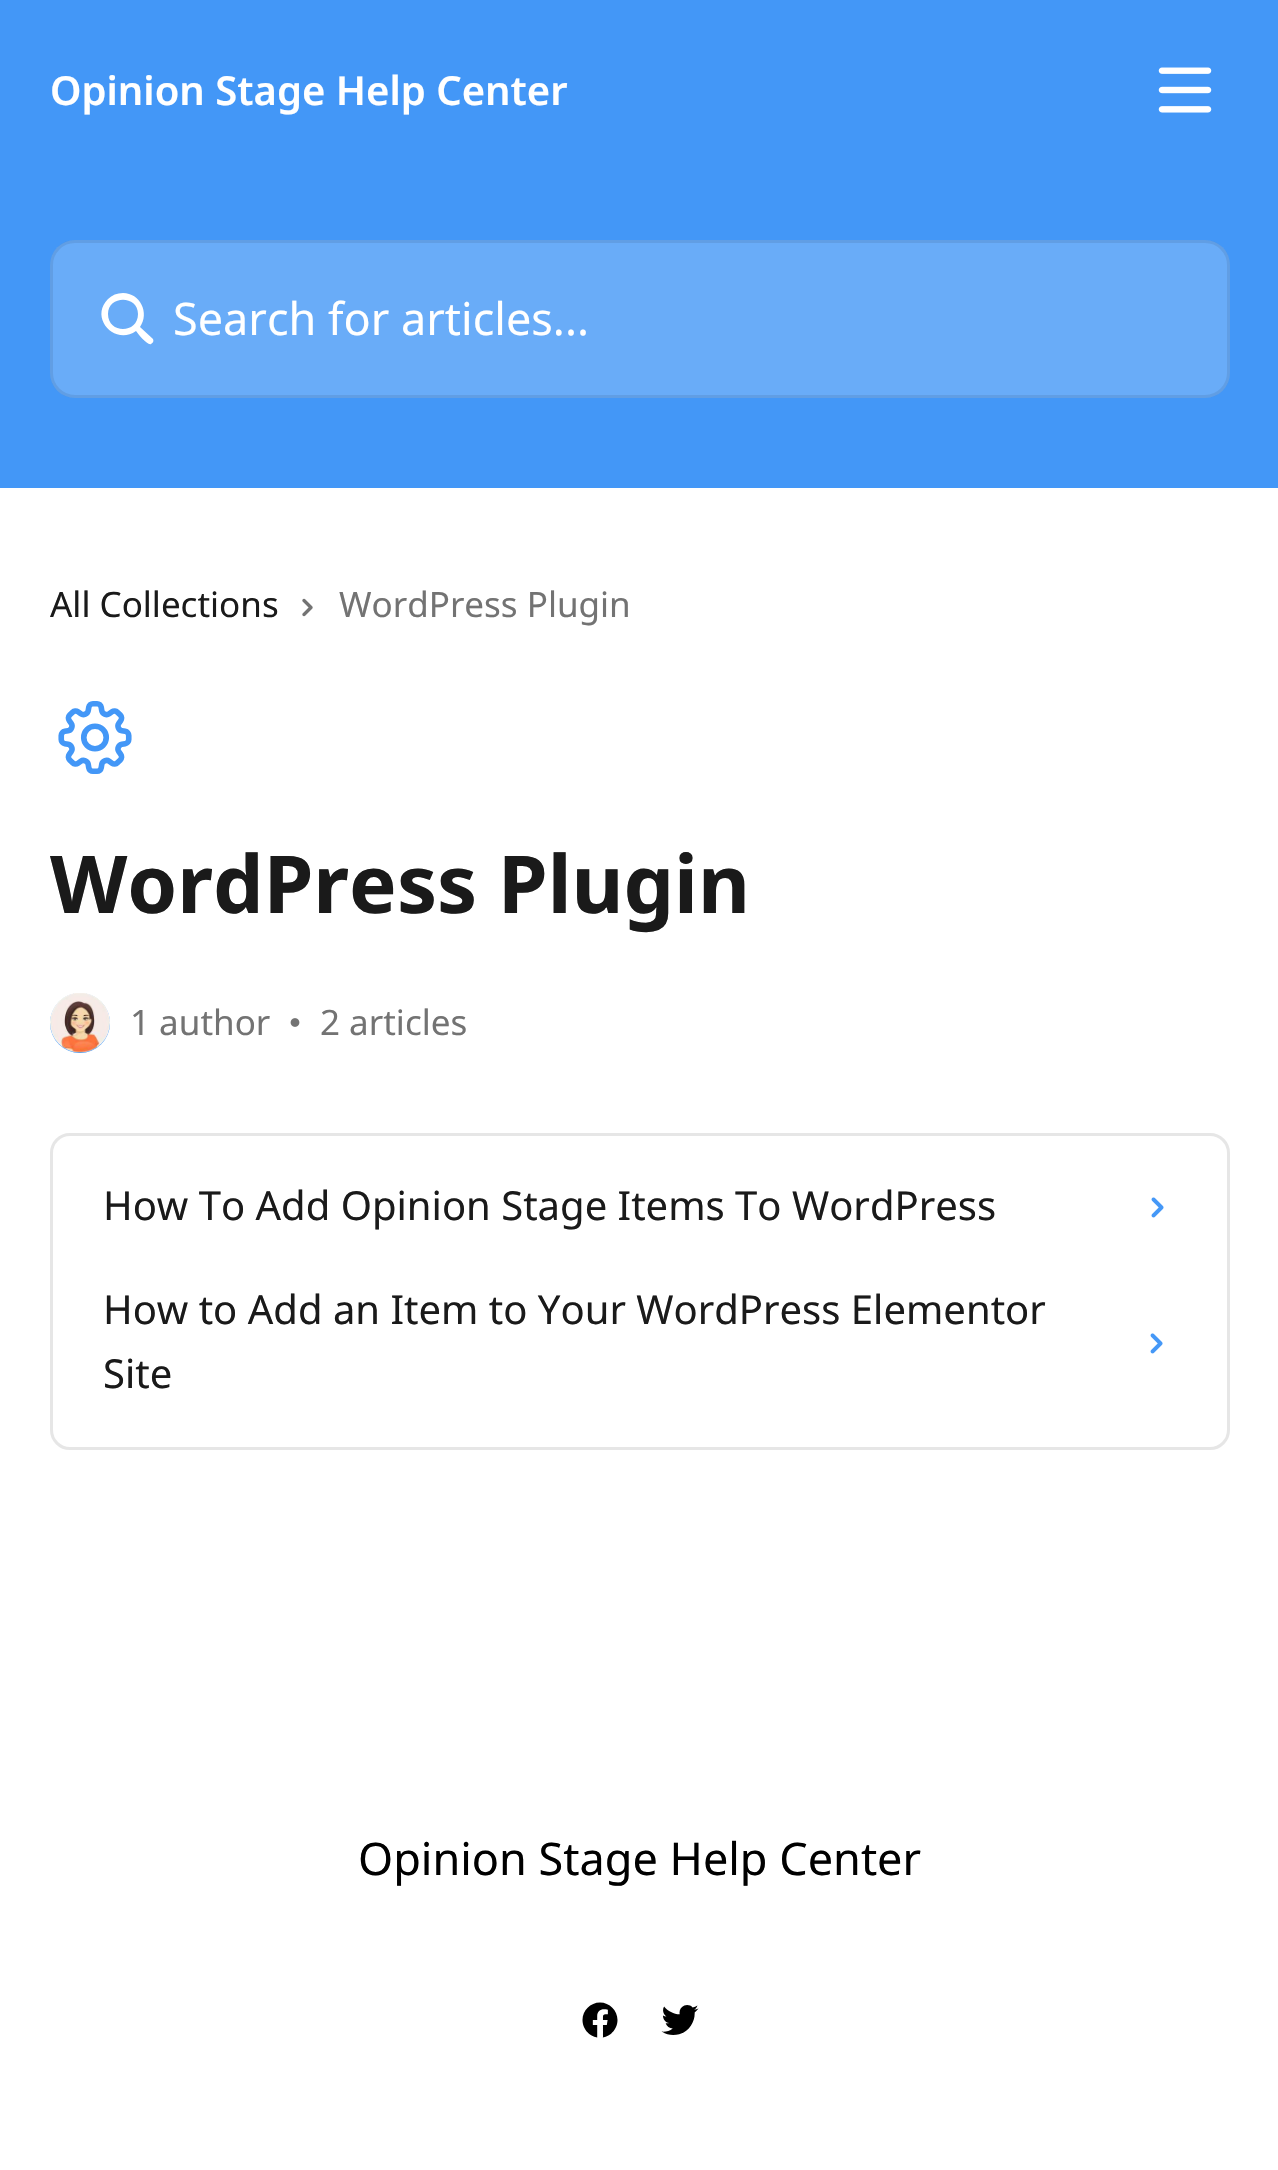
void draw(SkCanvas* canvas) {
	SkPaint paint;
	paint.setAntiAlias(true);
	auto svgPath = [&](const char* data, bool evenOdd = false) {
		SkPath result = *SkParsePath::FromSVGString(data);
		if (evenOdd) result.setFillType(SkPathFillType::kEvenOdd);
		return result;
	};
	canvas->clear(0xffffffff);
	paint.setColor(0xff4397f7);
	canvas->drawRect(SkRect::MakeXYWH(0, 0, 1278, 488), paint);
	SkFont f1(fontMgr->matchFamilyStyle("Noto Sans", SkFontStyle(600, SkFontStyle::kNormal_Width, SkFontStyle::kUpright_Slant)), 40);
	f1.setSubpixel(true);
	paint.setColor(0xffffffff);
	canvas->drawString("Opinion Stage Help Center", 50, 105, f1, paint);
	canvas->drawImageRect(SkImages::DeferredFromEncodedData(SkData::MakeFromFileName("img1.png")), SkRect::MakeXYWH(1158, 67, 54, 46), SkSamplingOptions());
	paint.setColor(0x33ffffff);
	canvas->drawRoundRect(SkRect::MakeXYWH(50, 240, 1180, 158), 25, 25, paint);
	paint.setStroke(true);
	paint.setStrokeWidth(3);
	paint.setColor(0x14000000);
	canvas->drawRoundRect(SkRect::MakeXYWH(51.5, 241.5, 1177, 155), 23.5, 23.5, paint);
	paint.setStroke(false);
	paint.setColor(0xffffffff);
	canvas->drawPath(svgPath("M108 314C108 295 138 295 138 314C138 334 108 334 108 314ZM123 293C117 293 112 295 108 299C89 318 115 346 136 331C138 334 148 346 151 344C153 343 154 341 153 339L140 327C150 313 140 293 123 293Z", true), paint);
	SkFont f2(fontMgr->matchFamilyStyle("Noto Sans", SkFontStyle::Normal()), 45);
	f2.setSubpixel(true);
	canvas->drawString("Search for articles...", 173, 335, f2, paint);
	SkFont f3(fontMgr->matchFamilyStyle("Noto Sans", SkFontStyle::Normal()), 35);
	f3.setSubpixel(true);
	paint.setColor(0xff1a1a1a);
	canvas->drawString("All Collections", 50, 617, f3, paint);
	canvas->drawImageRect(SkImages::DeferredFromEncodedData(SkData::MakeFromFileName("img2.png")), SkRect::MakeXYWH(302, 598, 11, 19), SkSamplingOptions());
	paint.setColor(0xff737373);
	canvas->drawString("WordPress Plugin", 339, 617, f3, paint);
	canvas->drawImageRect(SkImages::DeferredFromEncodedData(SkData::MakeFromFileName("img3.png")), SkRect::MakeXYWH(58, 701, 74, 73), SkSamplingOptions());
	SkFont f4(fontMgr->matchFamilyStyle("Noto Sans", SkFontStyle::Bold()), 80);
	f4.setSubpixel(true);
	paint.setColor(0xff1a1a1a);
	canvas->drawString("WordPress Plugin", 50, 913, f4, paint);
	paint.setColor(0xff4598f7);
	canvas->drawCircle(80, 1023, 30, paint);
	canvas->drawImageRect(SkImages::DeferredFromEncodedData(SkData::MakeFromFileName("img4.png")), SkRect::MakeXYWH(50, 993, 60, 60), SkSamplingOptions());
	paint.setColor(0xff737373);
	canvas->drawString("1 author", 130, 1035, f3, paint);
	canvas->drawImageRect(SkImages::DeferredFromEncodedData(SkData::MakeFromFileName("img5.png")), SkRect::MakeXYWH(290, 1018, 10, 9), SkSamplingOptions());
	canvas->drawString("2 articles", 320, 1035, f3, paint);
	paint.setStroke(true);
	paint.setColor(0xffe6e6e6);
	canvas->drawRoundRect(SkRect::MakeXYWH(51.5, 1134.5, 1177, 314), 18.5, 18.5, paint);
	SkFont f5(fontMgr->matchFamilyStyle("Noto Sans", SkFontStyle::Normal()), 40);
	f5.setSubpixel(true);
	paint.setStroke(false);
	paint.setColor(0xff1a1a1a);
	canvas->drawString("How To Add Opinion Stage Items To WordPress", 103, 1220, f5, paint);
	canvas->drawImageRect(SkImages::DeferredFromEncodedData(SkData::MakeFromFileName("img6.png")), SkRect::MakeXYWH(1151, 1197, 13, 21), SkSamplingOptions());
	canvas->drawString("How to Add an Item to Your WordPress Elementor", 103, 1324, f5, paint);
	canvas->drawString("Site", 103, 1388, f5, paint);
	canvas->drawImageRect(SkImages::DeferredFromEncodedData(SkData::MakeFromFileName("img7.png")), SkRect::MakeXYWH(1150, 1333, 13, 21), SkSamplingOptions());
	paint.setColor(0xff000000);
	canvas->drawString("Opinion Stage Help Center", 358, 1875, f2, paint);
	canvas->drawImageRect(SkImages::DeferredFromEncodedData(SkData::MakeFromFileName("img8.png")), SkRect::MakeXYWH(582, 2002, 36, 36), SkSamplingOptions());
	canvas->drawImageRect(SkImages::DeferredFromEncodedData(SkData::MakeFromFileName("img9.png")), SkRect::MakeXYWH(661, 2005, 38, 30), SkSamplingOptions());
}
